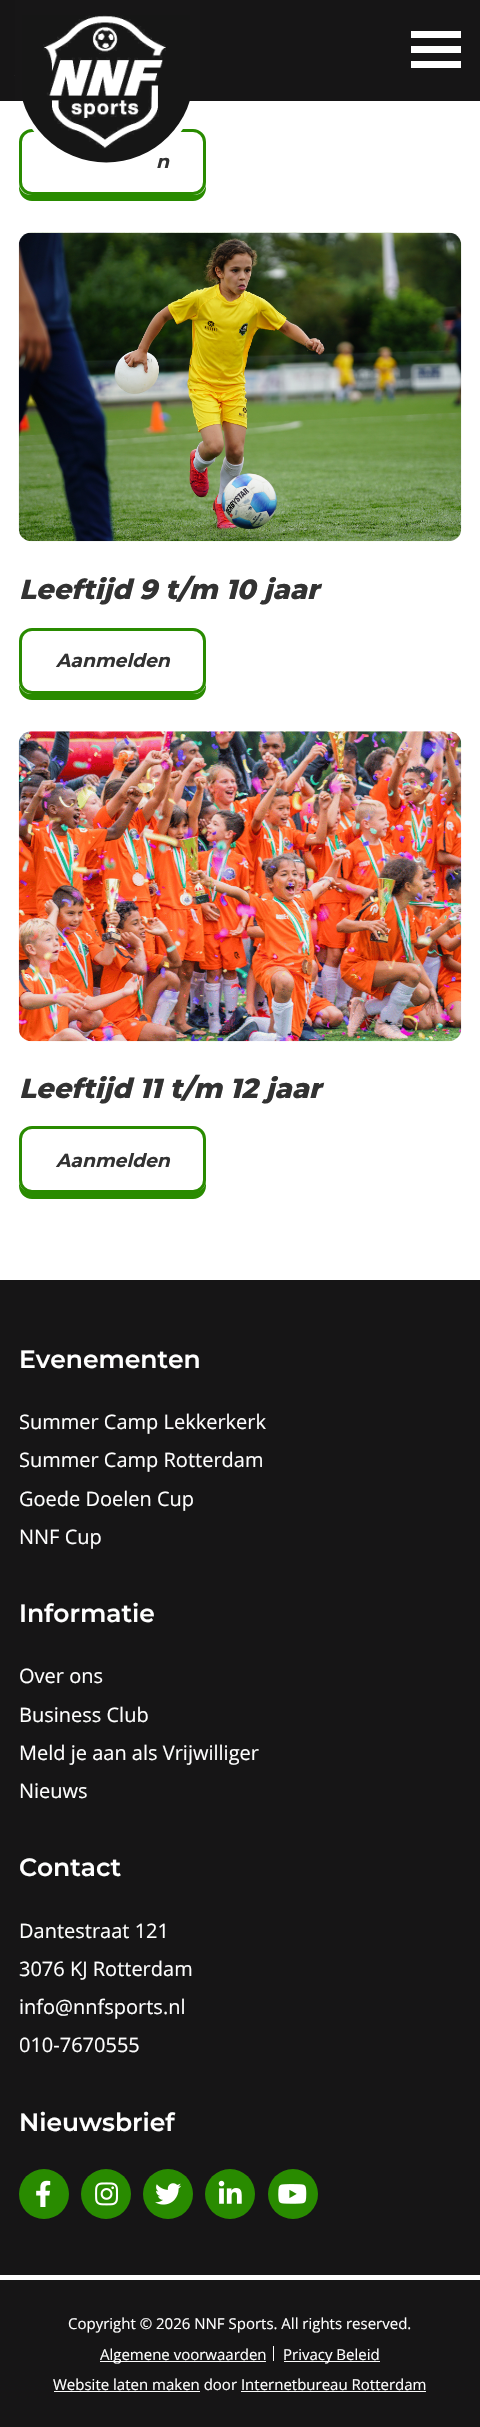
void draw(SkCanvas* canvas) {
	SkPaint paint;
	paint.setAntiAlias(true);
	auto svgPath = [&](const char* data, bool evenOdd = false) {
		SkPath result = *SkParsePath::FromSVGString(data);
		if (evenOdd) result.setFillType(SkPathFillType::kEvenOdd);
		return result;
	};
	canvas->clear(0xffffffff);
	paint.setColor(0xff161516);
	canvas->drawRect(SkRect::MakeXYWH(0, 0, 480, 101), paint);
	paint.setColor(0xff298b00);
	canvas->drawPath(svgPath("M19 185V188C19 195 25 201 32 201H193C200 201 206 195 206 188V185C205 191 200 195 194 195H31C25 195 20 191 19 185Z"), paint);
	paint.setColor(0xffffffff);
	canvas->drawRoundRect(SkRect::MakeXYWH(20.5, 130.5, 184, 63), 11.5, 11.5, paint);
	paint.setStroke(true);
	paint.setStrokeWidth(3);
	paint.setColor(0xff298b00);
	canvas->drawRoundRect(SkRect::MakeXYWH(20.5, 130.5, 184, 63), 11.5, 11.5, paint);
	SkFont f1(fontMgr->matchFamilyStyle("Montserrat", SkFontStyle::BoldItalic()), 18.75);
	f1.setSubpixel(true);
	paint.setStroke(false);
	paint.setColor(0xff323232);
	canvas->drawString("n", 156, 168, f1, paint);
	paint.setColor(0xffffffff);
	canvas->drawCircle(107.5, 75.5, 92.5, paint);
	paint.setColor(0xff171617);
	canvas->drawRect(SkRect::MakeXYWH(15, 0, 185, 101), paint);
	canvas->drawImageRect(SkImages::DeferredFromEncodedData(SkData::MakeFromFileName("img1.png")), SkRect::MakeXYWH(22, 15, 168, 148), SkSamplingOptions());
	paint.setColor(0xffffffff);
	canvas->drawRect(SkRect::MakeXYWH(411, 31, 50, 7), paint);
	canvas->drawRect(SkRect::MakeXYWH(411, 46, 50, 7), paint);
	canvas->drawRect(SkRect::MakeXYWH(411, 61, 50, 7), paint);
	canvas->drawImageRect(SkImages::DeferredFromEncodedData(SkData::MakeFromFileName("img2.png")), SkRect::MakeXYWH(18, 232, 444, 310), SkSamplingOptions());
	SkFont f2(fontMgr->matchFamilyStyle("Montserrat", SkFontStyle(800, SkFontStyle::kNormal_Width, SkFontStyle::kItalic_Slant)), 27.5);
	f2.setSubpixel(true);
	paint.setColor(0xff323232);
	canvas->drawString("Leeftijd 9 t/m 10 jaar", 19, 599, f2, paint);
	paint.setColor(0xff298b00);
	canvas->drawPath(svgPath("M19 684V687C19 694 25 700 32 700H193C200 700 206 694 206 687V684C205 689 200 694 194 694H31C25 694 20 689 19 684Z"), paint);
	paint.setColor(0xffffffff);
	canvas->drawRoundRect(SkRect::MakeXYWH(20.5, 629.5, 184, 63), 11.5, 11.5, paint);
	paint.setStroke(true);
	paint.setColor(0xff298b00);
	canvas->drawRoundRect(SkRect::MakeXYWH(20.5, 629.5, 184, 63), 11.5, 11.5, paint);
	paint.setStroke(false);
	paint.setColor(0xff323232);
	canvas->drawString("Aanmelden", 56, 667, f1, paint);
	canvas->drawImageRect(SkImages::DeferredFromEncodedData(SkData::MakeFromFileName("img3.png")), SkRect::MakeXYWH(18, 731, 444, 311), SkSamplingOptions());
	canvas->drawString("Leeftijd 11 t/m 12 jaar", 19, 1098, f2, paint);
	paint.setColor(0xff298b00);
	canvas->drawPath(svgPath("M19 1182V1186C19 1193 25 1199 32 1199H193C200 1199 206 1193 206 1186V1182C205 1188 200 1192 194 1192H31C25 1192 20 1188 19 1182Z"), paint);
	paint.setColor(0xffffffff);
	canvas->drawRoundRect(SkRect::MakeXYWH(20.5, 1127.5, 184, 64), 11.5, 11.5, paint);
	paint.setStroke(true);
	paint.setColor(0xff298b00);
	canvas->drawRoundRect(SkRect::MakeXYWH(20.5, 1127.5, 184, 64), 11.5, 11.5, paint);
	paint.setStroke(false);
	paint.setColor(0xff323232);
	canvas->drawString("Aanmelden", 56, 1167, f1, paint);
	paint.setColor(0xff161516);
	canvas->drawRect(SkRect::MakeXYWH(0, 1280, 480, 1147), paint);
	paint.setColor(0xffffffff);
	canvas->drawRect(SkRect::MakeXYWH(0, 2275, 480, 5), paint);
	SkFont f3(fontMgr->matchFamilyStyle("Montserrat", SkFontStyle(600, SkFontStyle::kNormal_Width, SkFontStyle::kUpright_Slant)), 25);
	f3.setSubpixel(true);
	canvas->drawString("Evenementen", 19, 1368, f3, paint);
	SkFont f4(fontMgr->matchFamilyStyle("Open Sans", SkFontStyle::Normal()), 20);
	f4.setSubpixel(true);
	canvas->drawString("Summer Camp Lekkerkerk", 19, 1429, f4, paint);
	canvas->drawString("Summer Camp Rotterdam", 19, 1467, f4, paint);
	canvas->drawString("Goede Doelen Cup", 19, 1506, f4, paint);
	canvas->drawString("NNF Cup", 19, 1544, f4, paint);
	canvas->drawString("Informatie", 19, 1622, f3, paint);
	canvas->drawString("Over ons", 19, 1683, f4, paint);
	canvas->drawString("Business Club", 19, 1722, f4, paint);
	canvas->drawString("Meld je aan als Vrijwilliger", 19, 1760, f4, paint);
	canvas->drawString("Nieuws", 19, 1798, f4, paint);
	canvas->drawString("Contact", 19, 1876, f3, paint);
	canvas->drawString("Dantestraat 121", 19, 1938, f4, paint);
	canvas->drawString("3076 KJ Rotterdam", 19, 1976, f4, paint);
	canvas->drawString("info@nnfsports.nl", 19, 2014, f4, paint);
	canvas->drawString("010-7670555", 19, 2052, f4, paint);
	canvas->drawString("Nieuwsbrief", 19, 2131, f3, paint);
	paint.setColor(0xff298b00);
	canvas->drawCircle(44, 2194, 25, paint);
	canvas->drawImageRect(SkImages::DeferredFromEncodedData(SkData::MakeFromFileName("img4.png")), SkRect::MakeXYWH(36, 2180, 15, 27), SkSamplingOptions());
	canvas->drawCircle(106, 2194, 25, paint);
	canvas->drawImageRect(SkImages::DeferredFromEncodedData(SkData::MakeFromFileName("img5.png")), SkRect::MakeXYWH(95, 2182, 23, 24), SkSamplingOptions());
	canvas->drawCircle(168, 2194, 25, paint);
	canvas->drawImageRect(SkImages::DeferredFromEncodedData(SkData::MakeFromFileName("img6.png")), SkRect::MakeXYWH(155, 2183, 27, 22), SkSamplingOptions());
	canvas->drawCircle(230, 2194, 25, paint);
	canvas->drawImageRect(SkImages::DeferredFromEncodedData(SkData::MakeFromFileName("img7.png")), SkRect::MakeXYWH(218, 2180, 24, 24), SkSamplingOptions());
	canvas->drawCircle(293, 2194, 25, paint);
	canvas->drawImageRect(SkImages::DeferredFromEncodedData(SkData::MakeFromFileName("img8.png")), SkRect::MakeXYWH(278, 2184, 29, 20), SkSamplingOptions());
	SkFont f5(fontMgr->matchFamilyStyle("Open Sans", SkFontStyle::Normal()), 15);
	f5.setSubpixel(true);
	paint.setColor(0xffffffff);
	canvas->drawString("Copyright © 2026 NNF Sports. All rights reserved.", 68, 2329, f5, paint);
	canvas->drawRect(SkRect::MakeXYWH(100, 2361, 166, 1), paint);
	canvas->drawString("Algemene voorwaarden", 100, 2360, f5, paint);
	canvas->drawRect(SkRect::MakeXYWH(273, 2346, 1, 15), paint);
	canvas->drawRect(SkRect::MakeXYWH(284, 2361, 96, 1), paint);
	canvas->drawString("Privacy Beleid", 283, 2360, f5, paint);
	canvas->drawString("Website laten maken door Internetbureau Rotterdam", 53, 2390, f5, paint);
	canvas->drawRect(SkRect::MakeXYWH(54, 2391, 146, 1), paint);
	canvas->drawRect(SkRect::MakeXYWH(241, 2391, 185, 1), paint);
}
